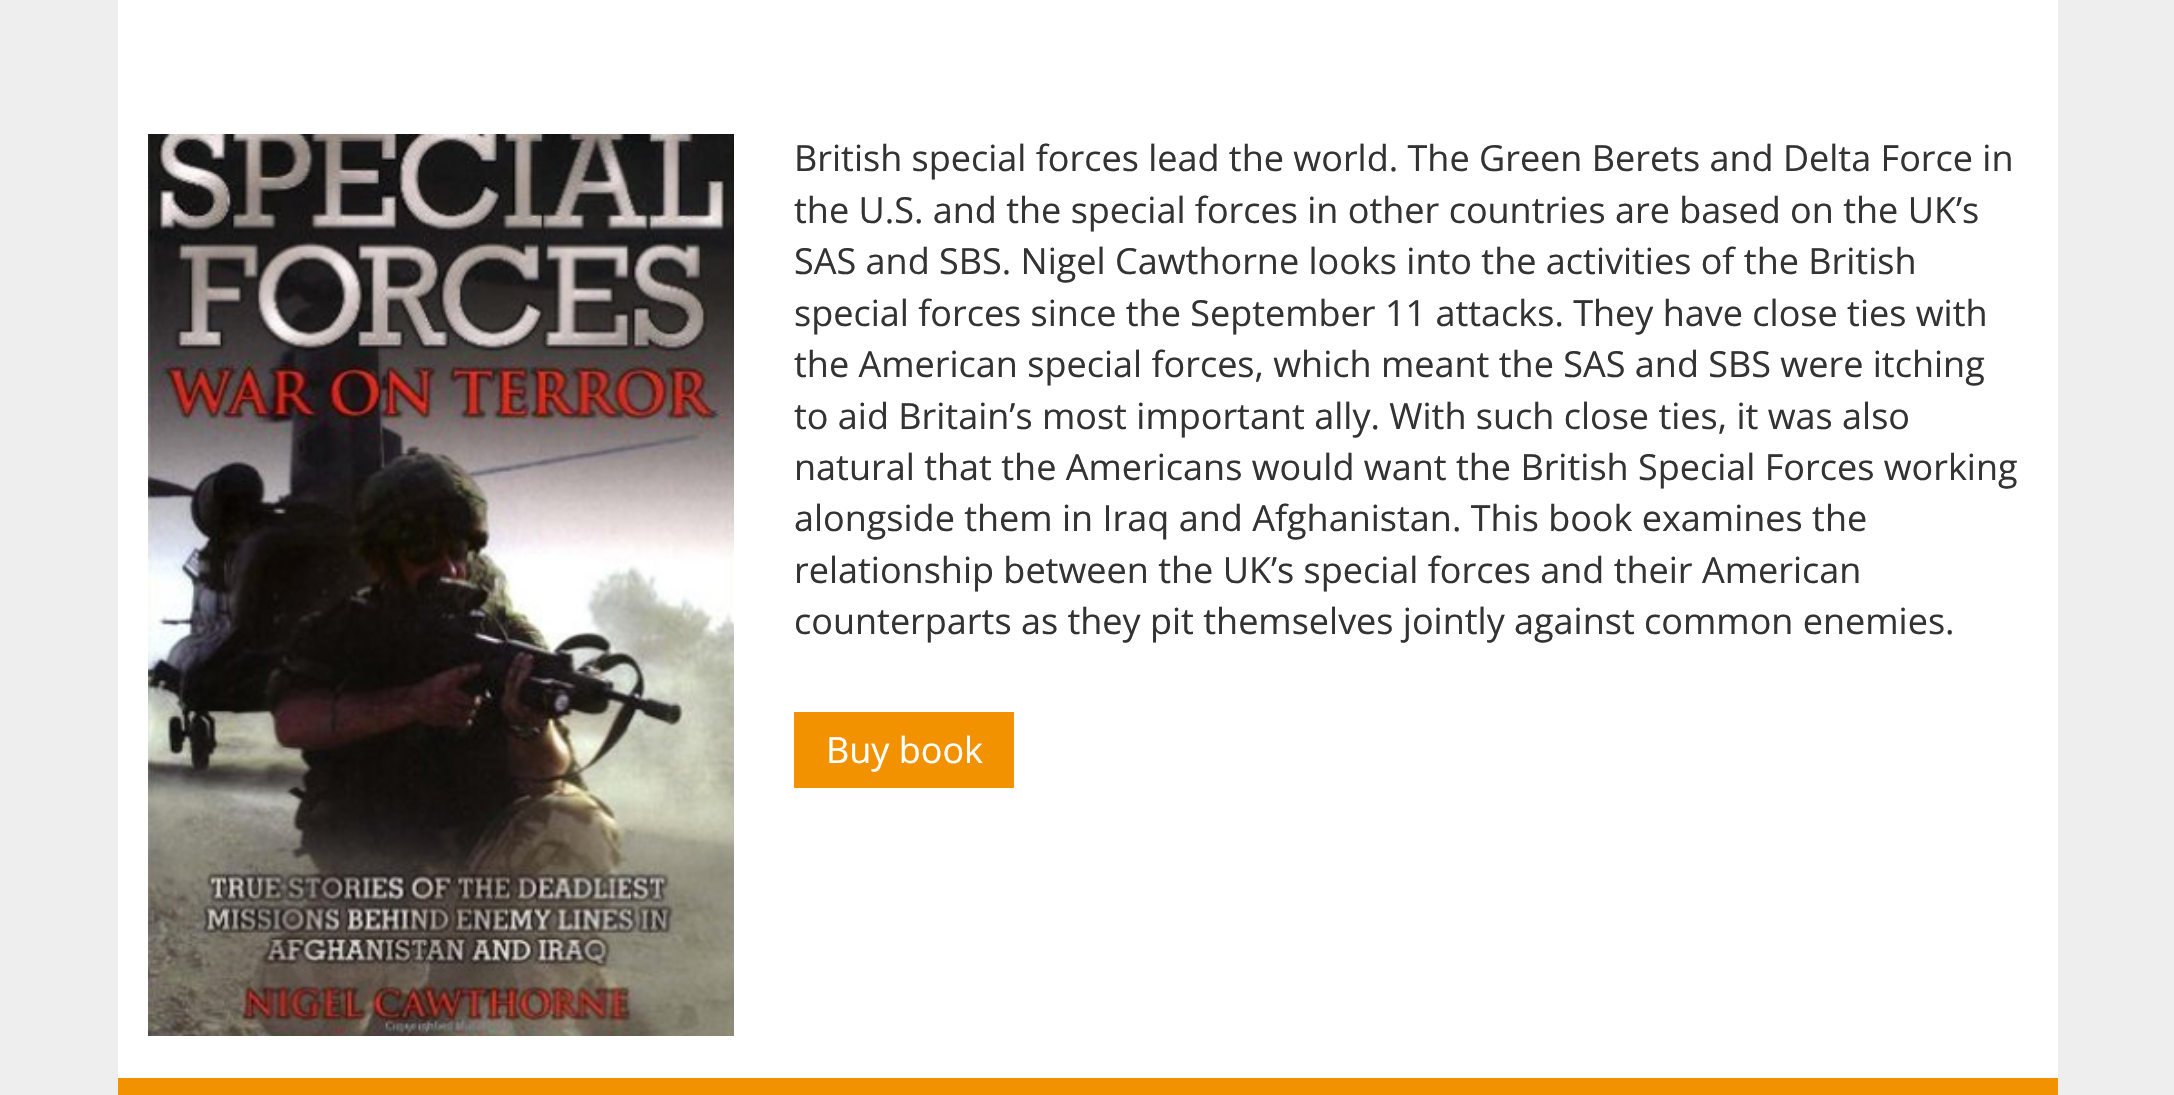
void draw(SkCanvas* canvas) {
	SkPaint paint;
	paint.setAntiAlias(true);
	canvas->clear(0xffeeeeee);
	paint.setColor(0xffffffff);
	canvas->drawRect(SkRect::MakeXYWH(118, 0, 1940, 1078), paint);
	canvas->drawImageRect(SkImages::DeferredFromEncodedData(SkData::MakeFromFileName("img1.png")), SkRect::MakeXYWH(148, 134, 586, 902), SkSamplingOptions());
	SkFont f1(fontMgr->matchFamilyStyle("Open Sans", SkFontStyle::Normal()), 36);
	f1.setSubpixel(true);
	paint.setColor(0xff333333);
	canvas->drawString("British special forces lead the world. The Green Berets and Delta Force in", 794, 171, f1, paint);
	canvas->drawString("the U.S. and the special forces in other countries are based on the UK’s", 794, 223, f1, paint);
	canvas->drawString("SAS and SBS. Nigel Cawthorne looks into the activities of the British", 794, 274, f1, paint);
	canvas->drawString("special forces since the September 11 attacks. They have close ties with", 794, 326, f1, paint);
	canvas->drawString("the American special forces, which meant the SAS and SBS were itching", 794, 377, f1, paint);
	canvas->drawString("to aid Britain’s most important ally. With such close ties, it was also", 794, 429, f1, paint);
	canvas->drawString("natural that the Americans would want the British Special Forces working", 794, 480, f1, paint);
	canvas->drawString("alongside them in Iraq and Afghanistan. This book examines the", 794, 531, f1, paint);
	canvas->drawString("relationship between the UK’s special forces and their American", 794, 583, f1, paint);
	canvas->drawString("counterparts as they pit themselves jointly against common enemies.", 794, 634, f1, paint);
	paint.setColor(0xfff39200);
	canvas->drawRect(SkRect::MakeXYWH(794, 712, 220, 76), paint);
	paint.setColor(0xffffffff);
	canvas->drawString("Buy book", 826, 763, f1, paint);
	paint.setColor(0xfff39200);
	canvas->drawRect(SkRect::MakeXYWH(118, 1078, 1940, 17), paint);
}
